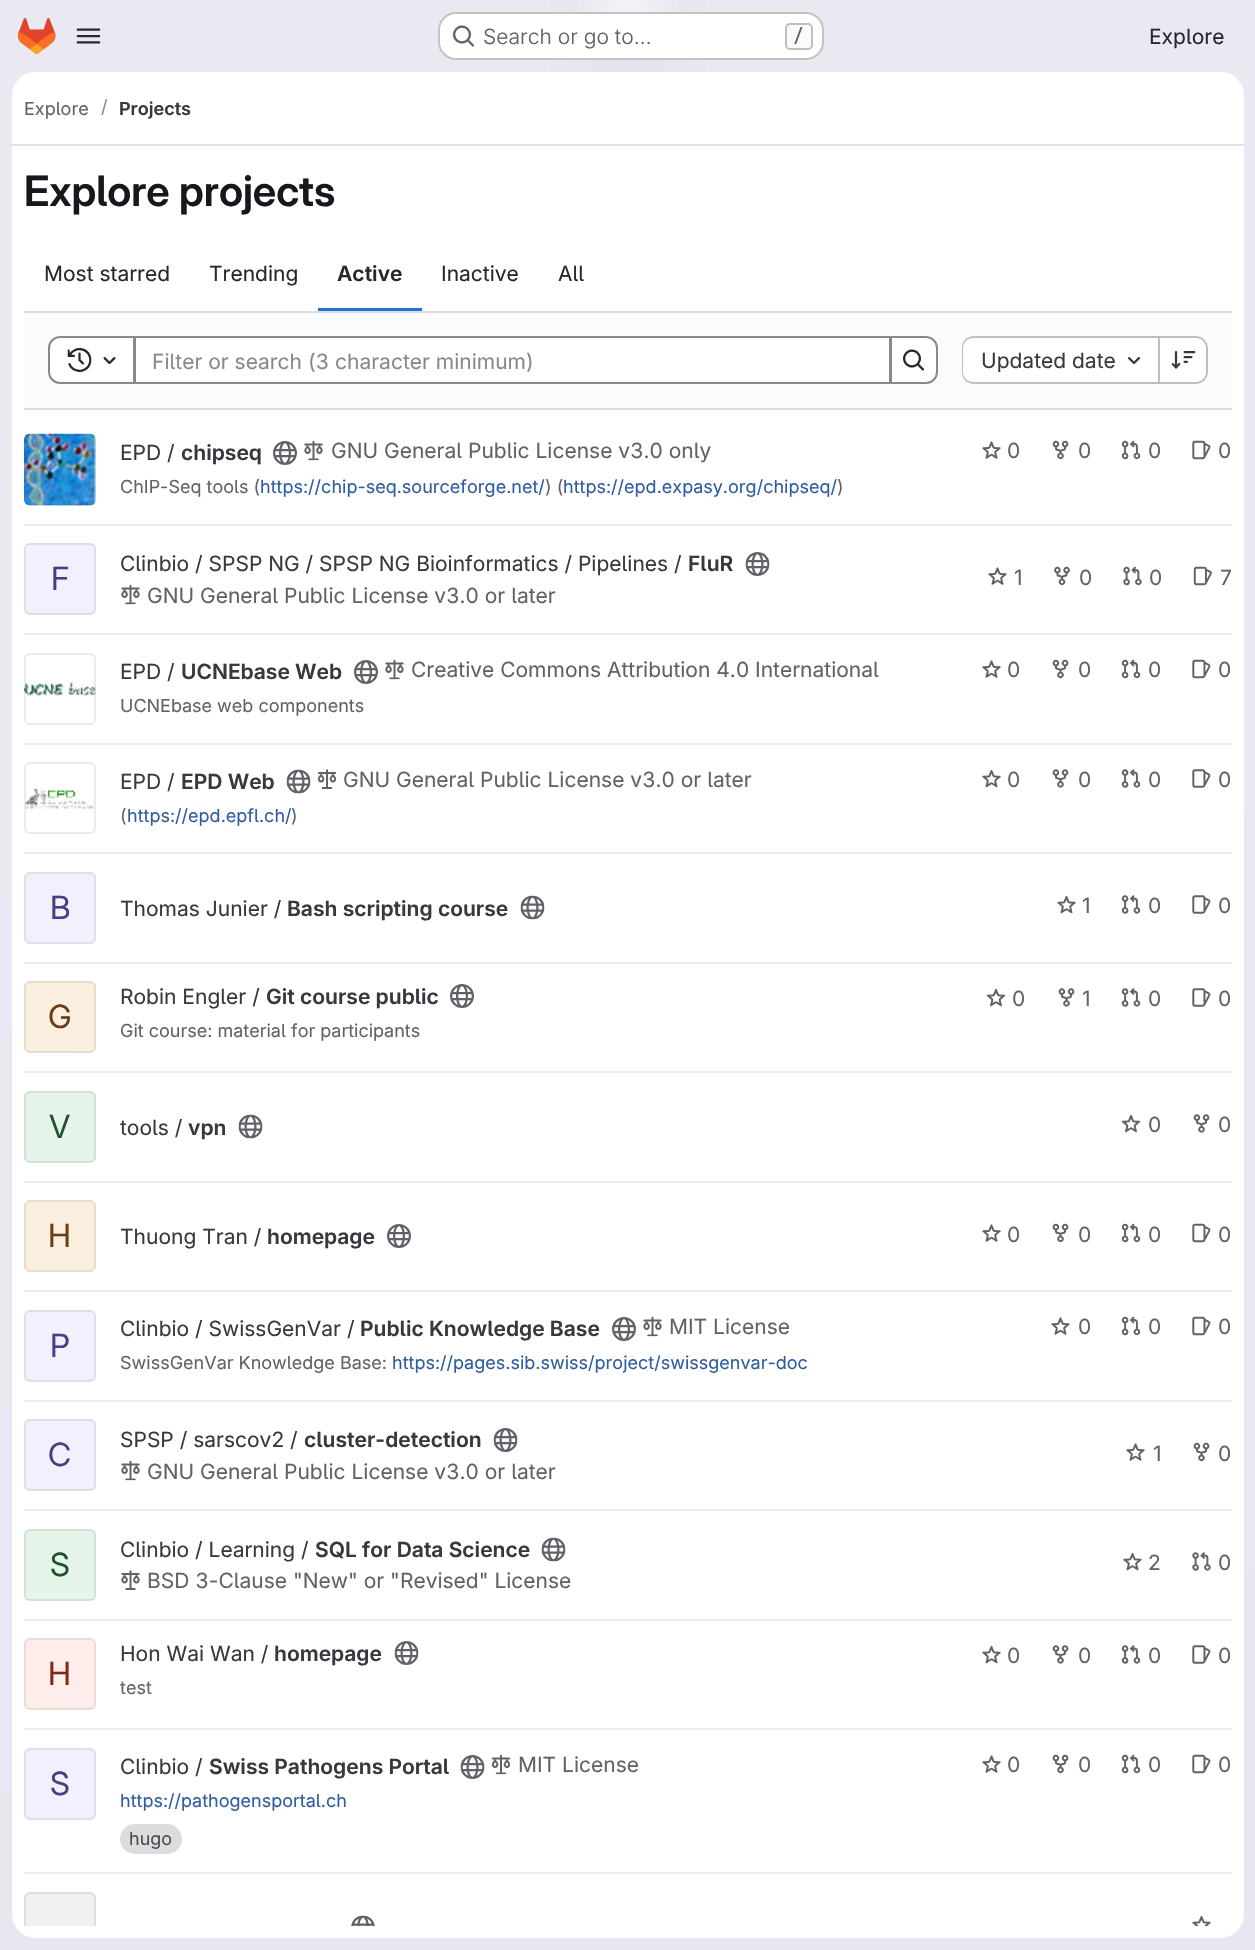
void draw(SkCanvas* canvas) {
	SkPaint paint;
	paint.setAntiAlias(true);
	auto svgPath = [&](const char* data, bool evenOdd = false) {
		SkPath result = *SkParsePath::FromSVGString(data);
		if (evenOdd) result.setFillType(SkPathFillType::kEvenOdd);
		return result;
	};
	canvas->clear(0xffffffff);
	{
		const SkColor colors[] = {0xffe8e6f0, 0xffeae9f2};
		const float stops[] = {0, 0.7};
		const SkPoint ends[] = {{813, 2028}, {442, -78}};
		paint.setShader(SkGradientShader::MakeLinear(ends, colors, stops, 2, SkTileMode::kClamp));
		paint.setAlpha(255);
	}
	canvas->drawRect(SkRect::MakeXYWH(0, 0, 1255, 1950), paint);
	{
		const SkColor colors[] = {0xffe4e2ed, 0x00e4e2ed};
		const float stops[] = {0, 0.17};
		SkMatrix m = SkMatrix::Translate(628, 0).preScale(628, 1950);
		paint.setShader(SkGradientShader::MakeRadial({0, 0}, 1, colors, stops, 2, SkTileMode::kClamp, 0, &m));
		paint.setAlpha(255);
	}
	canvas->drawRect(SkRect::MakeXYWH(550, 0, 156, 72), paint);
	{
		const SkColor colors[] = {0xffe4e2ec, 0x00e4e2ec};
		const float stops[] = {0, 0.12};
		SkMatrix m = SkMatrix::Translate(628, 0).preScale(628, 1950);
		paint.setShader(SkGradientShader::MakeRadial({0, 0}, 1, colors, stops, 2, SkTileMode::kClamp, 0, &m));
		paint.setAlpha(255);
	}
	canvas->drawRect(SkRect::MakeXYWH(597, 13, 62, 56), paint);
	{
		const SkColor colors[] = {0x99ffffff, 0x00ffffff};
		const float stops[] = {0, 0.03};
		paint.setShader(SkGradientShader::MakeRadial({628, 0}, 2049, colors, stops, 2, SkTileMode::kClamp));
		paint.setAlpha(255);
	}
	canvas->drawRect(SkRect::MakeXYWH(577, 0, 102, 12), paint);
	canvas->drawImageRect(SkImages::DeferredFromEncodedData(SkData::MakeFromFileName("img1.png")), SkRect::MakeXYWH(18, 18, 38, 36), SkSamplingOptions());
	canvas->drawImageRect(SkImages::DeferredFromEncodedData(SkData::MakeFromFileName("img2.png")), SkRect::MakeXYWH(76, 28, 25, 16), SkSamplingOptions());
	paint.setShader(nullptr);
	paint.setColor(0xffffffff);
	canvas->drawRoundRect(SkRect::MakeXYWH(438, 12, 386, 48), 18, 18, paint);
	paint.setStroke(true);
	paint.setStrokeWidth(2);
	paint.setColor(0x3d050506);
	canvas->drawRoundRect(SkRect::MakeXYWH(439, 13, 384, 46), 17, 17, paint);
	canvas->drawImageRect(SkImages::DeferredFromEncodedData(SkData::MakeFromFileName("img3.png")), SkRect::MakeXYWH(453, 25, 21, 22), SkSamplingOptions());
	SkFont f1(fontMgr->matchFamilyStyle("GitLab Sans", SkFontStyle(300, SkFontStyle::kNormal_Width, SkFontStyle::kUpright_Slant)), 21);
	f1.setSubpixel(true);
	paint.setStroke(false);
	paint.setColor(0xff626168);
	canvas->drawString("Search or go to…", 483, 44, f1, paint);
	paint.setColor(0xfffbfafd);
	canvas->drawRoundRect(SkRect::MakeXYWH(786, 24, 26, 25), 4, 4, paint);
	paint.setStroke(true);
	paint.setColor(0xffbfbfc3);
	canvas->drawRoundRect(SkRect::MakeXYWH(786, 24, 26, 25), 4, 4, paint);
	SkFont f2(fontMgr->matchFamilyStyle("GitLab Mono", SkFontStyle(500, SkFontStyle::kNormal_Width, SkFontStyle::kUpright_Slant)), 18);
	f2.setSubpixel(true);
	paint.setStroke(false);
	paint.setColor(0xff626168);
	canvas->drawString("/", 793, 42, f2, paint);
	SkFont f3(fontMgr->matchFamilyStyle("GitLab Sans", SkFontStyle::Normal()), 21);
	f3.setSubpixel(true);
	paint.setColor(0xff28272d);
	canvas->drawString("Explore", 1149, 44, f3, paint);
	paint.setColor(0xffffffff);
	canvas->drawRoundRect(SkRect::MakeXYWH(12, 72, 1232, 1866), 24, 24, paint);
	canvas->drawPath(svgPath("M36 72H1220C1233.5 72 1244 82.5 1244 96V146H12V96C12 82.5 22.5 72 36 72Z"), paint);
	paint.setColor(0xffe1dfec);
	canvas->drawRect(SkRect::MakeXYWH(12, 144, 1232, 2), paint);
	SkFont f4(fontMgr->matchFamilyStyle("GitLab Sans", SkFontStyle::Normal()), 18);
	f4.setSubpixel(true);
	paint.setColor(0xff626168);
	canvas->drawString("Explore", 24, 115, f4, paint);
	paint.setColor(0xff89888d);
	canvas->drawString("/", 101, 113, f4, paint);
	SkFont f5(fontMgr->matchFamilyStyle("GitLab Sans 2", SkFontStyle(600, SkFontStyle::kNormal_Width, SkFontStyle::kUpright_Slant)), 18);
	f5.setSubpixel(true);
	paint.setColor(0xff3a383f);
	canvas->drawString("Projects", 119, 115, f5, paint);
	SkFont f6(fontMgr->matchFamilyStyle("GitLab Sans", SkFontStyle(600, SkFontStyle::kNormal_Width, SkFontStyle::kUpright_Slant)), 42);
	f6.setSubpixel(true);
	paint.setColor(0xff18171d);
	canvas->drawString("Explore projects", 24, 206, f6, paint);
	paint.setColor(0xff28272d);
	canvas->drawString("Most starred", 44, 281, f3, paint);
	canvas->drawString("Trending", 209, 281, f3, paint);
	SkFont f7(fontMgr->matchFamilyStyle("GitLab Sans 2", SkFontStyle(600, SkFontStyle::kNormal_Width, SkFontStyle::kUpright_Slant)), 21);
	f7.setSubpixel(true);
	canvas->drawString("Active", 337, 281, f7, paint);
	paint.setColor(0xff1f75cb);
	canvas->drawRect(SkRect::MakeXYWH(318, 308, 104, 3), paint);
	paint.setColor(0xff28272d);
	canvas->drawString("Inactive", 441, 281, f3, paint);
	canvas->drawString("All", 558, 281, f3, paint);
	paint.setColor(0xfffbfafd);
	canvas->drawRect(SkRect::MakeXYWH(24, 313, 1208, 95), paint);
	paint.setColor(0xffdcdcde);
	canvas->drawRect(SkRect::MakeXYWH(24, 311, 1208, 2), paint);
	canvas->drawRect(SkRect::MakeXYWH(24, 408, 1208, 2), paint);
	paint.setColor(0xffffffff);
	canvas->drawRect(SkRect::MakeXYWH(135, 337, 755, 46), paint);
	paint.setStroke(true);
	paint.setColor(0xff89888d);
	canvas->drawRect(SkRect::MakeXYWH(135, 337, 755, 46), paint);
	paint.setStroke(false);
	paint.setColor(0xffffffff);
	canvas->drawPath(svgPath("M60 337H134V383H60C54 383 49 378 49 372V348C49 342 54 337 60 337Z"), paint);
	paint.setStroke(true);
	paint.setColor(0xff89888d);
	canvas->drawPath(svgPath("M60 337H134V383H60C54 383 49 378 49 372V348C49 342 54 337 60 337Z"), paint);
	canvas->drawImageRect(SkImages::DeferredFromEncodedData(SkData::MakeFromFileName("img4.png")), SkRect::MakeXYWH(67, 348, 25, 24), SkSamplingOptions());
	canvas->drawImageRect(SkImages::DeferredFromEncodedData(SkData::MakeFromFileName("img5.png")), SkRect::MakeXYWH(103, 357, 13, 8), SkSamplingOptions());
	paint.setStroke(false);
	canvas->drawString("Filter or search (3 character minimum)", 152, 369, f3, paint);
	paint.setColor(0xffffffff);
	canvas->drawPath(svgPath("M891 337H926C932 337 937 342 937 348V372C937 378 932 383 926 383H891Z"), paint);
	paint.setStroke(true);
	paint.setColor(0xff89888d);
	canvas->drawPath(svgPath("M891 337H926C932 337 937 342 937 348V372C937 378 932 383 926 383H891Z"), paint);
	canvas->drawImageRect(SkImages::DeferredFromEncodedData(SkData::MakeFromFileName("img6.png")), SkRect::MakeXYWH(903, 349, 21, 22), SkSamplingOptions());
	paint.setStroke(false);
	paint.setColor(0xffffffff);
	canvas->drawPath(svgPath("M974 338H1158V383H974C968 383 963 378 963 372V349C963 343 968 338 974 338Z"), paint);
	paint.setColor(0xffbfbfc3);
	canvas->drawPath(svgPath("M974 336H1158V384H974C967 384 962 379 962 372V348C962 341 967 336 974 336ZM974 338H1158V382H974C968 382 963 378 963 372V348C963 342 968 338 974 338Z", true), paint);
	canvas->save();
	canvas->clipRect(SkRect::MakeXYWH(981, 348, 135, 24));
	paint.setColor(0xff3a383f);
	canvas->drawString("Updated date", 981, 368, f3, paint);
	canvas->restore();
	canvas->drawImageRect(SkImages::DeferredFromEncodedData(SkData::MakeFromFileName("img7.png")), SkRect::MakeXYWH(1128, 357, 12, 8), SkSamplingOptions());
	paint.setColor(0xffffffff);
	canvas->drawPath(svgPath("M1160 338H1195C1201 338 1206 343 1206 349V372C1206 378 1201 383 1195 383H1160Z"), paint);
	paint.setColor(0xffbfbfc3);
	canvas->drawPath(svgPath("M1160 336H1196C1202 336 1208 341 1208 348V372C1208 379 1202 384 1196 384H1160ZM1160 338H1196C1201 338 1206 342 1206 348V372C1206 378 1201 382 1196 382H1160Z", true), paint);
	canvas->drawRect(SkRect::MakeXYWH(1158, 336, 2, 48), paint);
	canvas->drawImageRect(SkImages::DeferredFromEncodedData(SkData::MakeFromFileName("img8.png")), SkRect::MakeXYWH(1171, 351, 25, 18), SkSamplingOptions());
	paint.setColor(0xffececef);
	canvas->drawRect(SkRect::MakeXYWH(24, 524, 1208, 2), paint);
	canvas->drawImageRect(SkImages::DeferredFromEncodedData(SkData::MakeFromFileName("img9.png")), SkRect::MakeXYWH(24, 433, 72, 73), SkSamplingOptions());
	paint.setStroke(true);
	paint.setColor(0x14050506);
	canvas->drawRoundRect(SkRect::MakeXYWH(25, 435, 70, 70), 5, 5, paint);
	paint.setStroke(false);
	paint.setColor(0xff3a383f);
	canvas->drawString("EPD /", 120, 460, f3, paint);
	canvas->drawString("chipseq", 181, 460, f7, paint);
	canvas->drawImageRect(SkImages::DeferredFromEncodedData(SkData::MakeFromFileName("img10.png")), SkRect::MakeXYWH(273, 441, 24, 24), SkSamplingOptions());
	canvas->drawImageRect(SkImages::DeferredFromEncodedData(SkData::MakeFromFileName("img11.png")), SkRect::MakeXYWH(304, 440, 19, 21), SkSamplingOptions());
	paint.setColor(0xff626168);
	canvas->drawString("GNU General Public License v3.0 only", 331, 458, f3, paint);
	canvas->drawString("ChIP-Seq tools (", 120, 493, f4, paint);
	paint.setColor(0xff2f5ca0);
	canvas->drawString("https://chip-seq.sourceforge.net/", 260, 493, f4, paint);
	paint.setColor(0xff626168);
	canvas->drawString(") (", 545, 493, f4, paint);
	paint.setColor(0xff2f5ca0);
	canvas->drawString("https://epd.expasy.org/chipseq/", 563, 493, f4, paint);
	paint.setColor(0xff626168);
	canvas->drawString(")", 837, 493, f4, paint);
	canvas->drawImageRect(SkImages::DeferredFromEncodedData(SkData::MakeFromFileName("img12.png")), SkRect::MakeXYWH(982, 441, 19, 18), SkSamplingOptions());
	canvas->drawString("0", 1007, 458, f3, paint);
	canvas->drawImageRect(SkImages::DeferredFromEncodedData(SkData::MakeFromFileName("img13.png")), SkRect::MakeXYWH(1052, 440, 17, 20), SkSamplingOptions());
	canvas->drawString("0", 1078, 458, f3, paint);
	canvas->drawImageRect(SkImages::DeferredFromEncodedData(SkData::MakeFromFileName("img14.png")), SkRect::MakeXYWH(1121, 440, 20, 20), SkSamplingOptions());
	canvas->drawString("0", 1148, 458, f3, paint);
	canvas->drawImageRect(SkImages::DeferredFromEncodedData(SkData::MakeFromFileName("img15.png")), SkRect::MakeXYWH(1192, 440, 19, 20), SkSamplingOptions());
	canvas->drawString("0", 1218, 458, f3, paint);
	paint.setColor(0xffececef);
	canvas->drawRect(SkRect::MakeXYWH(24, 633, 1208, 2), paint);
	paint.setColor(0xfff3effc);
	canvas->drawRoundRect(SkRect::MakeXYWH(24, 543, 72, 72), 6, 6, paint);
	paint.setStroke(true);
	paint.setColor(0x14050506);
	canvas->drawRoundRect(SkRect::MakeXYWH(25, 544, 70, 70), 5, 5, paint);
	SkFont f8(fontMgr->matchFamilyStyle("GitLab Sans 2", SkFontStyle::Normal()), 32);
	f8.setSubpixel(true);
	paint.setStroke(false);
	paint.setColor(0xff493c83);
	canvas->drawString("F", 51, 590, f8, paint);
	paint.setColor(0xff3a383f);
	canvas->drawString("Clinbio / SPSP NG / SPSP NG Bioinformatics / Pipelines /", 120, 571, f3, paint);
	canvas->drawString("FluR", 688, 571, f7, paint);
	canvas->drawImageRect(SkImages::DeferredFromEncodedData(SkData::MakeFromFileName("img16.png")), SkRect::MakeXYWH(745, 552, 25, 24), SkSamplingOptions());
	canvas->drawImageRect(SkImages::DeferredFromEncodedData(SkData::MakeFromFileName("img11.png")), SkRect::MakeXYWH(121, 584, 19, 21), SkSamplingOptions());
	paint.setColor(0xff626168);
	canvas->drawString("GNU General Public License v3.0 or later", 147, 603, f3, paint);
	canvas->drawImageRect(SkImages::DeferredFromEncodedData(SkData::MakeFromFileName("img12.png")), SkRect::MakeXYWH(988, 567, 19, 18), SkSamplingOptions());
	canvas->drawString("1", 1014, 585, f3, paint);
	canvas->drawImageRect(SkImages::DeferredFromEncodedData(SkData::MakeFromFileName("img17.png")), SkRect::MakeXYWH(1054, 566, 16, 20), SkSamplingOptions());
	canvas->drawString("0", 1079, 585, f3, paint);
	canvas->drawImageRect(SkImages::DeferredFromEncodedData(SkData::MakeFromFileName("img18.png")), SkRect::MakeXYWH(1123, 566, 19, 20), SkSamplingOptions());
	canvas->drawString("0", 1149, 585, f3, paint);
	canvas->drawImageRect(SkImages::DeferredFromEncodedData(SkData::MakeFromFileName("img19.png")), SkRect::MakeXYWH(1193, 566, 19, 20), SkSamplingOptions());
	canvas->drawString("7", 1220, 585, f3, paint);
	paint.setColor(0xffececef);
	canvas->drawRect(SkRect::MakeXYWH(24, 743, 1208, 2), paint);
	canvas->drawImageRect(SkImages::DeferredFromEncodedData(SkData::MakeFromFileName("img20.png")), SkRect::MakeXYWH(24, 682, 72, 14), SkSamplingOptions());
	paint.setStroke(true);
	paint.setColor(0x14050506);
	canvas->drawRoundRect(SkRect::MakeXYWH(25, 654, 70, 70), 5, 5, paint);
	paint.setStroke(false);
	paint.setColor(0xff3a383f);
	canvas->drawString("EPD /", 120, 679, f3, paint);
	canvas->drawString("UCNEbase Web", 181, 679, f7, paint);
	canvas->drawImageRect(SkImages::DeferredFromEncodedData(SkData::MakeFromFileName("img10.png")), SkRect::MakeXYWH(354, 660, 24, 24), SkSamplingOptions());
	canvas->drawImageRect(SkImages::DeferredFromEncodedData(SkData::MakeFromFileName("img11.png")), SkRect::MakeXYWH(385, 659, 19, 21), SkSamplingOptions());
	paint.setColor(0xff626168);
	canvas->drawString("Creative Commons Attribution 4.0 International", 411, 677, f3, paint);
	canvas->drawString("UCNEbase web components", 120, 712, f4, paint);
	canvas->drawImageRect(SkImages::DeferredFromEncodedData(SkData::MakeFromFileName("img12.png")), SkRect::MakeXYWH(982, 660, 19, 18), SkSamplingOptions());
	canvas->drawString("0", 1007, 677, f3, paint);
	canvas->drawImageRect(SkImages::DeferredFromEncodedData(SkData::MakeFromFileName("img21.png")), SkRect::MakeXYWH(1052, 659, 17, 20), SkSamplingOptions());
	canvas->drawString("0", 1078, 677, f3, paint);
	canvas->drawImageRect(SkImages::DeferredFromEncodedData(SkData::MakeFromFileName("img14.png")), SkRect::MakeXYWH(1121, 659, 20, 20), SkSamplingOptions());
	canvas->drawString("0", 1148, 677, f3, paint);
	canvas->drawImageRect(SkImages::DeferredFromEncodedData(SkData::MakeFromFileName("img15.png")), SkRect::MakeXYWH(1192, 659, 19, 20), SkSamplingOptions());
	canvas->drawString("0", 1218, 677, f3, paint);
	paint.setColor(0xffececef);
	canvas->drawRect(SkRect::MakeXYWH(24, 852, 1208, 2), paint);
	canvas->drawImageRect(SkImages::DeferredFromEncodedData(SkData::MakeFromFileName("img22.png")), SkRect::MakeXYWH(24, 788, 70, 21), SkSamplingOptions());
	paint.setStroke(true);
	paint.setColor(0x14050506);
	canvas->drawRoundRect(SkRect::MakeXYWH(25, 763, 70, 70), 5, 5, paint);
	paint.setStroke(false);
	paint.setColor(0xff3a383f);
	canvas->drawString("EPD /", 120, 789, f3, paint);
	canvas->drawString("EPD Web", 181, 789, f7, paint);
	canvas->drawImageRect(SkImages::DeferredFromEncodedData(SkData::MakeFromFileName("img23.png")), SkRect::MakeXYWH(286, 769, 25, 25), SkSamplingOptions());
	canvas->drawImageRect(SkImages::DeferredFromEncodedData(SkData::MakeFromFileName("img24.png")), SkRect::MakeXYWH(317, 769, 20, 20), SkSamplingOptions());
	paint.setColor(0xff626168);
	canvas->drawString("GNU General Public License v3.0 or later", 343, 787, f3, paint);
	canvas->drawString("(", 120, 822, f4, paint);
	paint.setColor(0xff2f5ca0);
	canvas->drawString("https://epd.epfl.ch/", 127, 822, f4, paint);
	paint.setColor(0xff626168);
	canvas->drawString(")", 291, 822, f4, paint);
	canvas->drawImageRect(SkImages::DeferredFromEncodedData(SkData::MakeFromFileName("img25.png")), SkRect::MakeXYWH(982, 769, 19, 19), SkSamplingOptions());
	canvas->drawString("0", 1007, 787, f3, paint);
	canvas->drawImageRect(SkImages::DeferredFromEncodedData(SkData::MakeFromFileName("img26.png")), SkRect::MakeXYWH(1052, 769, 17, 19), SkSamplingOptions());
	canvas->drawString("0", 1078, 787, f3, paint);
	canvas->drawImageRect(SkImages::DeferredFromEncodedData(SkData::MakeFromFileName("img27.png")), SkRect::MakeXYWH(1121, 769, 20, 19), SkSamplingOptions());
	canvas->drawString("0", 1148, 787, f3, paint);
	canvas->drawImageRect(SkImages::DeferredFromEncodedData(SkData::MakeFromFileName("img28.png")), SkRect::MakeXYWH(1192, 769, 19, 19), SkSamplingOptions());
	canvas->drawString("0", 1218, 787, f3, paint);
	paint.setColor(0xffececef);
	canvas->drawRect(SkRect::MakeXYWH(24, 962, 1208, 2), paint);
	paint.setColor(0xfff3effc);
	canvas->drawRoundRect(SkRect::MakeXYWH(24, 872, 72, 72), 6, 6, paint);
	paint.setStroke(true);
	paint.setColor(0x14050506);
	canvas->drawRoundRect(SkRect::MakeXYWH(25, 873, 70, 70), 5, 5, paint);
	paint.setStroke(false);
	paint.setColor(0xff493c83);
	canvas->drawString("B", 50, 919, f8, paint);
	paint.setColor(0xff3a383f);
	canvas->drawString("Thomas Junier /", 120, 916, f3, paint);
	canvas->drawString("Bash scripting course", 287, 916, f7, paint);
	canvas->drawImageRect(SkImages::DeferredFromEncodedData(SkData::MakeFromFileName("img29.png")), SkRect::MakeXYWH(520, 895, 25, 25), SkSamplingOptions());
	canvas->drawImageRect(SkImages::DeferredFromEncodedData(SkData::MakeFromFileName("img30.png")), SkRect::MakeXYWH(1057, 895, 19, 19), SkSamplingOptions());
	paint.setColor(0xff626168);
	canvas->drawString("1", 1082, 913, f3, paint);
	canvas->drawImageRect(SkImages::DeferredFromEncodedData(SkData::MakeFromFileName("img27.png")), SkRect::MakeXYWH(1121, 895, 20, 19), SkSamplingOptions());
	canvas->drawString("0", 1148, 913, f3, paint);
	canvas->drawImageRect(SkImages::DeferredFromEncodedData(SkData::MakeFromFileName("img28.png")), SkRect::MakeXYWH(1192, 895, 19, 19), SkSamplingOptions());
	canvas->drawString("0", 1218, 913, f3, paint);
	paint.setColor(0xffececef);
	canvas->drawRect(SkRect::MakeXYWH(24, 1071, 1208, 2), paint);
	paint.setColor(0xff3a383f);
	canvas->drawString("Robin Engler /", 120, 1004, f3, paint);
	canvas->drawString("Git course public", 266, 1004, f7, paint);
	canvas->drawImageRect(SkImages::DeferredFromEncodedData(SkData::MakeFromFileName("img10.png")), SkRect::MakeXYWH(450, 984, 24, 24), SkSamplingOptions());
	paint.setColor(0xff626168);
	canvas->drawString("Git course: material for participants", 120, 1037, f4, paint);
	canvas->drawImageRect(SkImages::DeferredFromEncodedData(SkData::MakeFromFileName("img31.png")), SkRect::MakeXYWH(986, 988, 20, 19), SkSamplingOptions());
	canvas->drawString("0", 1012, 1006, f3, paint);
	canvas->drawImageRect(SkImages::DeferredFromEncodedData(SkData::MakeFromFileName("img26.png")), SkRect::MakeXYWH(1058, 988, 17, 19), SkSamplingOptions());
	canvas->drawString("1", 1082, 1006, f3, paint);
	canvas->drawImageRect(SkImages::DeferredFromEncodedData(SkData::MakeFromFileName("img27.png")), SkRect::MakeXYWH(1121, 988, 20, 19), SkSamplingOptions());
	canvas->drawString("0", 1148, 1006, f3, paint);
	canvas->drawImageRect(SkImages::DeferredFromEncodedData(SkData::MakeFromFileName("img28.png")), SkRect::MakeXYWH(1192, 988, 19, 19), SkSamplingOptions());
	canvas->drawString("0", 1218, 1006, f3, paint);
	paint.setColor(0xfffaefde);
	canvas->drawRoundRect(SkRect::MakeXYWH(24, 981, 72, 72), 6, 6, paint);
	paint.setStroke(true);
	paint.setColor(0x14050506);
	canvas->drawRoundRect(SkRect::MakeXYWH(25, 982, 70, 70), 5, 5, paint);
	paint.setStroke(false);
	paint.setColor(0xff693c14);
	canvas->drawString("G", 48, 1028, f8, paint);
	paint.setColor(0xffececef);
	canvas->drawRect(SkRect::MakeXYWH(24, 1181, 1208, 2), paint);
	paint.setColor(0xffe5f5ea);
	canvas->drawRoundRect(SkRect::MakeXYWH(24, 1091, 72, 72), 6, 6, paint);
	paint.setStroke(true);
	paint.setColor(0x14050506);
	canvas->drawRoundRect(SkRect::MakeXYWH(25, 1092, 70, 70), 5, 5, paint);
	paint.setStroke(false);
	paint.setColor(0xff225131);
	canvas->drawString("V", 49, 1138, f8, paint);
	paint.setColor(0xff3a383f);
	canvas->drawString("tools /", 120, 1135, f3, paint);
	canvas->drawString("vpn", 188, 1135, f7, paint);
	canvas->drawImageRect(SkImages::DeferredFromEncodedData(SkData::MakeFromFileName("img32.png")), SkRect::MakeXYWH(238, 1114, 25, 25), SkSamplingOptions());
	canvas->drawImageRect(SkImages::DeferredFromEncodedData(SkData::MakeFromFileName("img31.png")), SkRect::MakeXYWH(1121, 1114, 20, 19), SkSamplingOptions());
	paint.setColor(0xff626168);
	canvas->drawString("0", 1148, 1132, f3, paint);
	canvas->drawImageRect(SkImages::DeferredFromEncodedData(SkData::MakeFromFileName("img26.png")), SkRect::MakeXYWH(1193, 1114, 17, 19), SkSamplingOptions());
	canvas->drawString("0", 1218, 1132, f3, paint);
	paint.setColor(0xffececef);
	canvas->drawRect(SkRect::MakeXYWH(24, 1290, 1208, 2), paint);
	paint.setColor(0xfffaefde);
	canvas->drawRoundRect(SkRect::MakeXYWH(24, 1200, 72, 72), 6, 6, paint);
	paint.setStroke(true);
	paint.setColor(0x14050506);
	canvas->drawRoundRect(SkRect::MakeXYWH(25, 1201, 70, 70), 5, 5, paint);
	paint.setStroke(false);
	paint.setColor(0xff693c14);
	canvas->drawString("H", 48, 1247, f8, paint);
	paint.setColor(0xff3a383f);
	canvas->drawString("Thuong Tran /", 120, 1244, f3, paint);
	canvas->drawString("homepage", 267, 1244, f7, paint);
	canvas->drawImageRect(SkImages::DeferredFromEncodedData(SkData::MakeFromFileName("img10.png")), SkRect::MakeXYWH(387, 1224, 24, 24), SkSamplingOptions());
	canvas->drawImageRect(SkImages::DeferredFromEncodedData(SkData::MakeFromFileName("img12.png")), SkRect::MakeXYWH(982, 1224, 19, 18), SkSamplingOptions());
	paint.setColor(0xff626168);
	canvas->drawString("0", 1007, 1242, f3, paint);
	canvas->drawImageRect(SkImages::DeferredFromEncodedData(SkData::MakeFromFileName("img13.png")), SkRect::MakeXYWH(1052, 1223, 17, 20), SkSamplingOptions());
	canvas->drawString("0", 1078, 1242, f3, paint);
	canvas->drawImageRect(SkImages::DeferredFromEncodedData(SkData::MakeFromFileName("img14.png")), SkRect::MakeXYWH(1121, 1223, 20, 20), SkSamplingOptions());
	canvas->drawString("0", 1148, 1242, f3, paint);
	canvas->drawImageRect(SkImages::DeferredFromEncodedData(SkData::MakeFromFileName("img15.png")), SkRect::MakeXYWH(1192, 1223, 19, 20), SkSamplingOptions());
	canvas->drawString("0", 1218, 1242, f3, paint);
	paint.setColor(0xffececef);
	canvas->drawRect(SkRect::MakeXYWH(24, 1400, 1208, 2), paint);
	paint.setColor(0xff3a383f);
	canvas->drawString("Clinbio / SwissGenVar /", 120, 1336, f3, paint);
	canvas->drawString("Public Knowledge Base", 360, 1336, f7, paint);
	canvas->drawImageRect(SkImages::DeferredFromEncodedData(SkData::MakeFromFileName("img33.png")), SkRect::MakeXYWH(612, 1317, 24, 24), SkSamplingOptions());
	canvas->drawImageRect(SkImages::DeferredFromEncodedData(SkData::MakeFromFileName("img11.png")), SkRect::MakeXYWH(643, 1316, 19, 21), SkSamplingOptions());
	paint.setColor(0xff626168);
	canvas->drawString("MIT License", 669, 1334, f3, paint);
	canvas->drawString("SwissGenVar Knowledge Base:", 120, 1369, f4, paint);
	paint.setColor(0xff2f5ca0);
	canvas->drawString("https://pages.sib.swiss/project/swissgenvar-doc", 392, 1369, f4, paint);
	canvas->drawImageRect(SkImages::DeferredFromEncodedData(SkData::MakeFromFileName("img12.png")), SkRect::MakeXYWH(1051, 1317, 19, 18), SkSamplingOptions());
	paint.setColor(0xff626168);
	canvas->drawString("0", 1078, 1334, f3, paint);
	canvas->drawImageRect(SkImages::DeferredFromEncodedData(SkData::MakeFromFileName("img14.png")), SkRect::MakeXYWH(1121, 1316, 20, 20), SkSamplingOptions());
	canvas->drawString("0", 1148, 1334, f3, paint);
	canvas->drawImageRect(SkImages::DeferredFromEncodedData(SkData::MakeFromFileName("img15.png")), SkRect::MakeXYWH(1192, 1316, 19, 20), SkSamplingOptions());
	canvas->drawString("0", 1218, 1334, f3, paint);
	paint.setColor(0xfff3effc);
	canvas->drawRoundRect(SkRect::MakeXYWH(24, 1310, 72, 72), 6, 6, paint);
	paint.setStroke(true);
	paint.setColor(0x14050506);
	canvas->drawRoundRect(SkRect::MakeXYWH(25, 1311, 70, 70), 5, 5, paint);
	paint.setStroke(false);
	paint.setColor(0xff493c83);
	canvas->drawString("P", 50, 1357, f8, paint);
	paint.setColor(0xffececef);
	canvas->drawRect(SkRect::MakeXYWH(24, 1509, 1208, 2), paint);
	paint.setColor(0xfff3effc);
	canvas->drawRoundRect(SkRect::MakeXYWH(24, 1419, 72, 72), 6, 6, paint);
	paint.setStroke(true);
	paint.setColor(0x14050506);
	canvas->drawRoundRect(SkRect::MakeXYWH(25, 1420, 70, 70), 5, 5, paint);
	SkFont f9(fontMgr->matchFamilyStyle("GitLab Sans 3", SkFontStyle::Normal()), 32);
	f9.setSubpixel(true);
	paint.setStroke(false);
	paint.setColor(0xff493c83);
	canvas->drawString("C", 48, 1466, f9, paint);
	paint.setColor(0xff3a383f);
	canvas->drawString("SPSP / sarscov2 /", 120, 1447, f3, paint);
	canvas->drawString("cluster-detection", 304, 1447, f7, paint);
	canvas->drawImageRect(SkImages::DeferredFromEncodedData(SkData::MakeFromFileName("img34.png")), SkRect::MakeXYWH(493, 1428, 25, 24), SkSamplingOptions());
	canvas->drawImageRect(SkImages::DeferredFromEncodedData(SkData::MakeFromFileName("img11.png")), SkRect::MakeXYWH(121, 1460, 19, 21), SkSamplingOptions());
	paint.setColor(0xff626168);
	canvas->drawString("GNU General Public License v3.0 or later", 147, 1479, f3, paint);
	canvas->drawImageRect(SkImages::DeferredFromEncodedData(SkData::MakeFromFileName("img12.png")), SkRect::MakeXYWH(1126, 1443, 19, 18), SkSamplingOptions());
	canvas->drawString("1", 1153, 1461, f3, paint);
	canvas->drawImageRect(SkImages::DeferredFromEncodedData(SkData::MakeFromFileName("img13.png")), SkRect::MakeXYWH(1193, 1442, 17, 20), SkSamplingOptions());
	canvas->drawString("0", 1218, 1461, f3, paint);
	paint.setColor(0xffececef);
	canvas->drawRect(SkRect::MakeXYWH(24, 1619, 1208, 2), paint);
	paint.setColor(0xffe5f5ea);
	canvas->drawRoundRect(SkRect::MakeXYWH(24, 1529, 72, 72), 6, 6, paint);
	paint.setStroke(true);
	paint.setColor(0x14050506);
	canvas->drawRoundRect(SkRect::MakeXYWH(25, 1530, 70, 70), 5, 5, paint);
	paint.setStroke(false);
	paint.setColor(0xff225131);
	canvas->drawString("S", 50, 1576, f8, paint);
	paint.setColor(0xff3a383f);
	canvas->drawString("Clinbio / Learning /", 120, 1557, f3, paint);
	canvas->drawString("SQL for Data Science", 315, 1557, f7, paint);
	canvas->drawImageRect(SkImages::DeferredFromEncodedData(SkData::MakeFromFileName("img35.png")), SkRect::MakeXYWH(541, 1537, 25, 25), SkSamplingOptions());
	canvas->drawImageRect(SkImages::DeferredFromEncodedData(SkData::MakeFromFileName("img36.png")), SkRect::MakeXYWH(121, 1570, 19, 20), SkSamplingOptions());
	paint.setColor(0xff626168);
	canvas->drawString("BSD 3-Clause \"New\" or \"Revised\" License", 147, 1588, f3, paint);
	canvas->drawImageRect(SkImages::DeferredFromEncodedData(SkData::MakeFromFileName("img30.png")), SkRect::MakeXYWH(1123, 1552, 19, 19), SkSamplingOptions());
	canvas->drawString("2", 1148, 1570, f3, paint);
	canvas->drawImageRect(SkImages::DeferredFromEncodedData(SkData::MakeFromFileName("img37.png")), SkRect::MakeXYWH(1192, 1552, 19, 19), SkSamplingOptions());
	canvas->drawString("0", 1218, 1570, f3, paint);
	paint.setColor(0xffececef);
	canvas->drawRect(SkRect::MakeXYWH(24, 1728, 1208, 2), paint);
	paint.setColor(0xff3a383f);
	canvas->drawString("Hon Wai Wan /", 120, 1661, f3, paint);
	canvas->drawString("homepage", 274, 1661, f7, paint);
	canvas->drawImageRect(SkImages::DeferredFromEncodedData(SkData::MakeFromFileName("img38.png")), SkRect::MakeXYWH(394, 1641, 25, 24), SkSamplingOptions());
	paint.setColor(0xff626168);
	canvas->drawString("test", 120, 1694, f4, paint);
	canvas->drawImageRect(SkImages::DeferredFromEncodedData(SkData::MakeFromFileName("img25.png")), SkRect::MakeXYWH(982, 1645, 19, 19), SkSamplingOptions());
	canvas->drawString("0", 1007, 1663, f3, paint);
	canvas->drawImageRect(SkImages::DeferredFromEncodedData(SkData::MakeFromFileName("img26.png")), SkRect::MakeXYWH(1052, 1645, 17, 19), SkSamplingOptions());
	canvas->drawString("0", 1078, 1663, f3, paint);
	canvas->drawImageRect(SkImages::DeferredFromEncodedData(SkData::MakeFromFileName("img27.png")), SkRect::MakeXYWH(1121, 1645, 20, 19), SkSamplingOptions());
	canvas->drawString("0", 1148, 1663, f3, paint);
	canvas->drawImageRect(SkImages::DeferredFromEncodedData(SkData::MakeFromFileName("img28.png")), SkRect::MakeXYWH(1192, 1645, 19, 19), SkSamplingOptions());
	canvas->drawString("0", 1218, 1663, f3, paint);
	paint.setColor(0xfffeedeb);
	canvas->drawRoundRect(SkRect::MakeXYWH(24, 1638, 72, 72), 6, 6, paint);
	paint.setStroke(true);
	paint.setColor(0x14050506);
	canvas->drawRoundRect(SkRect::MakeXYWH(25, 1639, 70, 70), 5, 5, paint);
	paint.setStroke(false);
	paint.setColor(0xff812713);
	canvas->drawString("H", 48, 1685, f8, paint);
	paint.setColor(0xffececef);
	canvas->drawRect(SkRect::MakeXYWH(24, 1872, 1208, 2), paint);
	paint.setColor(0xff3a383f);
	canvas->drawString("Clinbio /", 120, 1774, f3, paint);
	canvas->drawString("Swiss Pathogens Portal", 209, 1774, f7, paint);
	canvas->drawImageRect(SkImages::DeferredFromEncodedData(SkData::MakeFromFileName("img39.png")), SkRect::MakeXYWH(460, 1755, 25, 24), SkSamplingOptions());
	canvas->drawImageRect(SkImages::DeferredFromEncodedData(SkData::MakeFromFileName("img40.png")), SkRect::MakeXYWH(491, 1754, 20, 21), SkSamplingOptions());
	paint.setColor(0xff626168);
	canvas->drawString("MIT License", 518, 1772, f3, paint);
	paint.setColor(0xff2f5ca0);
	canvas->drawString("https://pathogensportal.ch", 120, 1807, f4, paint);
	paint.setColor(0xffdcdcde);
	canvas->drawRoundRect(SkRect::MakeXYWH(120, 1824, 62, 30), 15, 15, paint);
	paint.setColor(0xff4c4b51);
	canvas->drawString("hugo", 129, 1845, f4, paint);
	canvas->drawImageRect(SkImages::DeferredFromEncodedData(SkData::MakeFromFileName("img12.png")), SkRect::MakeXYWH(982, 1755, 19, 18), SkSamplingOptions());
	paint.setColor(0xff626168);
	canvas->drawString("0", 1007, 1772, f3, paint);
	canvas->drawImageRect(SkImages::DeferredFromEncodedData(SkData::MakeFromFileName("img13.png")), SkRect::MakeXYWH(1052, 1754, 17, 20), SkSamplingOptions());
	canvas->drawString("0", 1078, 1772, f3, paint);
	canvas->drawImageRect(SkImages::DeferredFromEncodedData(SkData::MakeFromFileName("img14.png")), SkRect::MakeXYWH(1121, 1754, 20, 20), SkSamplingOptions());
	canvas->drawString("0", 1148, 1772, f3, paint);
	canvas->drawImageRect(SkImages::DeferredFromEncodedData(SkData::MakeFromFileName("img15.png")), SkRect::MakeXYWH(1192, 1754, 19, 20), SkSamplingOptions());
	canvas->drawString("0", 1218, 1772, f3, paint);
	paint.setColor(0xfff3effc);
	canvas->drawRoundRect(SkRect::MakeXYWH(24, 1748, 72, 72), 6, 6, paint);
	paint.setStroke(true);
	paint.setColor(0x14050506);
	canvas->drawRoundRect(SkRect::MakeXYWH(25, 1749, 70, 70), 5, 5, paint);
	paint.setStroke(false);
	paint.setColor(0xff493c83);
	canvas->drawString("S", 50, 1795, f8, paint);
	paint.setColor(0xfff0f0f1);
	canvas->drawPath(svgPath("M30 1892H90C93.5 1892 96 1894.5 96 1898V1926H24V1898C24 1894.5 26.5 1892 30 1892Z"), paint);
	canvas->save();
	canvas->clipRect(SkRect::MakeXYWH(12, 146, 1232, 1780));
	paint.setColor(0x14050506);
	canvas->drawPath(svgPath("M30 1892C27 1892 24 1895 24 1898V1935L26 1936V1898C26 1896 28 1894 30 1894H90C92 1894 94 1896 94 1898V1938H96V1898C96 1895 93 1892 90 1892Z"), paint);
	canvas->restore();
	canvas->drawImageRect(SkImages::DeferredFromEncodedData(SkData::MakeFromFileName("img41.png")), SkRect::MakeXYWH(351, 1915, 24, 11), SkSamplingOptions());
	canvas->drawImageRect(SkImages::DeferredFromEncodedData(SkData::MakeFromFileName("img42.png")), SkRect::MakeXYWH(1192, 1915, 19, 11), SkSamplingOptions());
}
